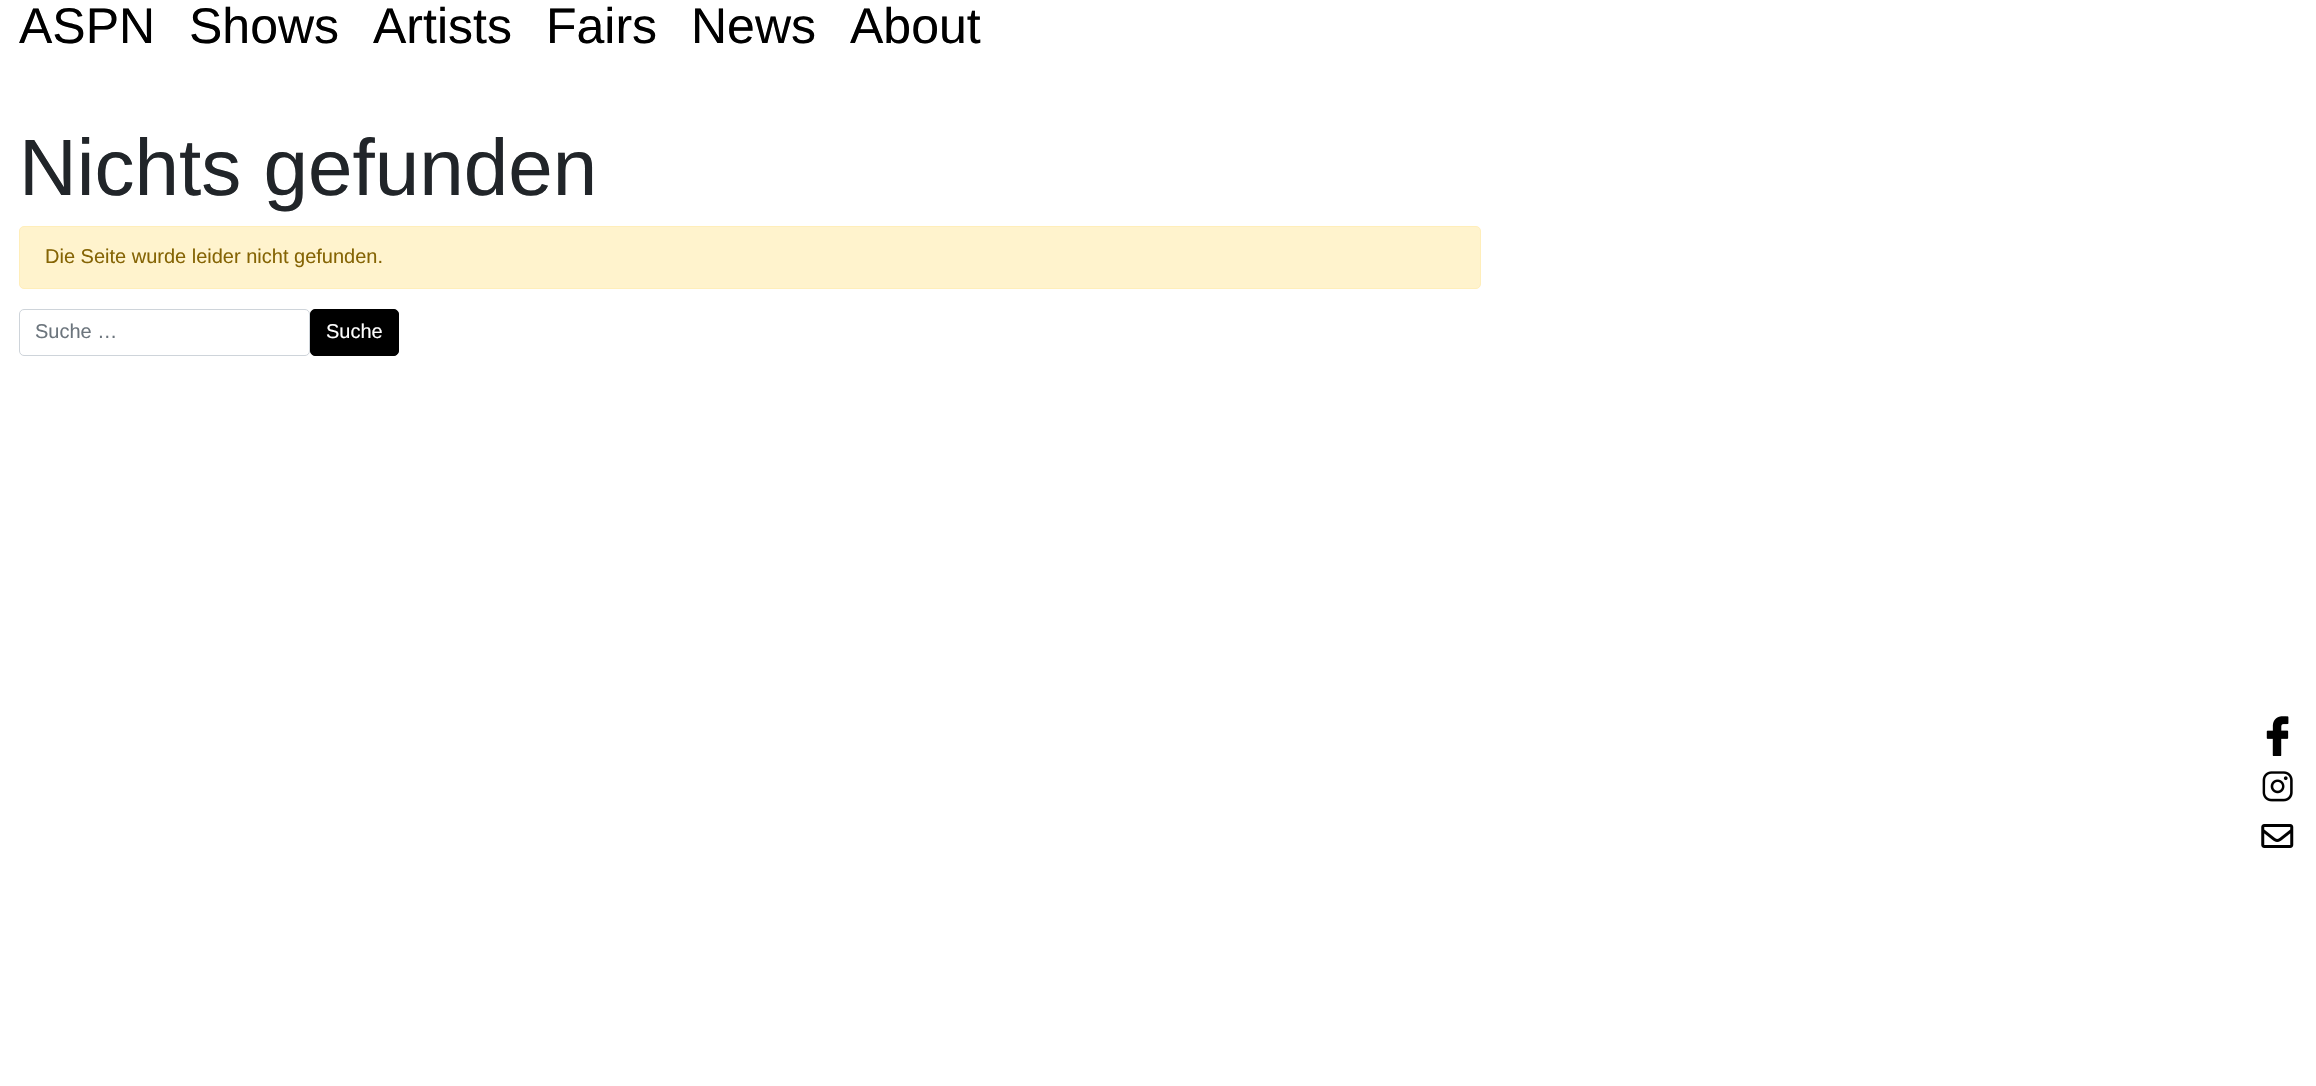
void draw(SkCanvas* canvas) {
	SkPaint paint;
	paint.setAntiAlias(true);
	canvas->clear(0xffffffff);
	SkFont f1(fontMgr->matchFamilyStyle("Liberation Sans", SkFontStyle::Normal()), 50);
	f1.setSubpixel(true);
	paint.setColor(0xff000000);
	canvas->drawString("ASPN", 19, 43, f1, paint);
	canvas->drawString("Shows", 189, 43, f1, paint);
	canvas->drawString("Artists", 373, 43, f1, paint);
	canvas->drawString("Fairs", 546, 43, f1, paint);
	canvas->drawString("News", 691, 43, f1, paint);
	canvas->drawString("About", 850, 43, f1, paint);
	canvas->drawImageRect(SkImages::DeferredFromEncodedData(SkData::MakeFromFileName("img1.png")), SkRect::MakeXYWH(2266, 716, 23, 40), SkSamplingOptions());
	canvas->drawImageRect(SkImages::DeferredFromEncodedData(SkData::MakeFromFileName("img2.png")), SkRect::MakeXYWH(2262, 771, 31, 31), SkSamplingOptions());
	canvas->drawImageRect(SkImages::DeferredFromEncodedData(SkData::MakeFromFileName("img3.png")), SkRect::MakeXYWH(2261, 824, 33, 24), SkSamplingOptions());
	SkFont f2(fontMgr->matchFamilyStyle("Liberation Sans", SkFontStyle::Normal()), 80);
	f2.setSubpixel(true);
	paint.setColor(0xff212529);
	canvas->drawString("Nichts gefunden", 19, 195, f2, paint);
	paint.setColor(0xfffff3cd);
	canvas->drawRoundRect(SkRect::MakeXYWH(19.5, 226.5, 1461, 62), 4.5, 4.5, paint);
	paint.setStroke(true);
	paint.setStrokeWidth(1);
	paint.setColor(0xffffeeba);
	canvas->drawRoundRect(SkRect::MakeXYWH(19.5, 226.5, 1461, 62), 4.5, 4.5, paint);
	SkFont f3(fontMgr->matchFamilyStyle("Liberation Sans", SkFontStyle::Normal()), 20);
	f3.setSubpixel(true);
	paint.setStroke(false);
	paint.setColor(0xff856404);
	canvas->drawString("Die Seite wurde leider nicht gefunden.", 45, 263, f3, paint);
	paint.setStroke(true);
	paint.setColor(0xffced4da);
	canvas->drawRoundRect(SkRect::MakeXYWH(19.5, 309.5, 290, 46), 4.5, 4.5, paint);
	paint.setStroke(false);
	paint.setColor(0xff6c757d);
	canvas->drawString("Suche …", 35, 338, f3, paint);
	paint.setColor(0xff000000);
	canvas->drawRoundRect(SkRect::MakeXYWH(310.5, 309.5, 88, 46), 4.5, 4.5, paint);
	paint.setStroke(true);
	canvas->drawRoundRect(SkRect::MakeXYWH(310.5, 309.5, 88, 46), 4.5, 4.5, paint);
	paint.setStroke(false);
	paint.setColor(0xffffffff);
	canvas->drawString("Suche", 326, 338, f3, paint);
}
